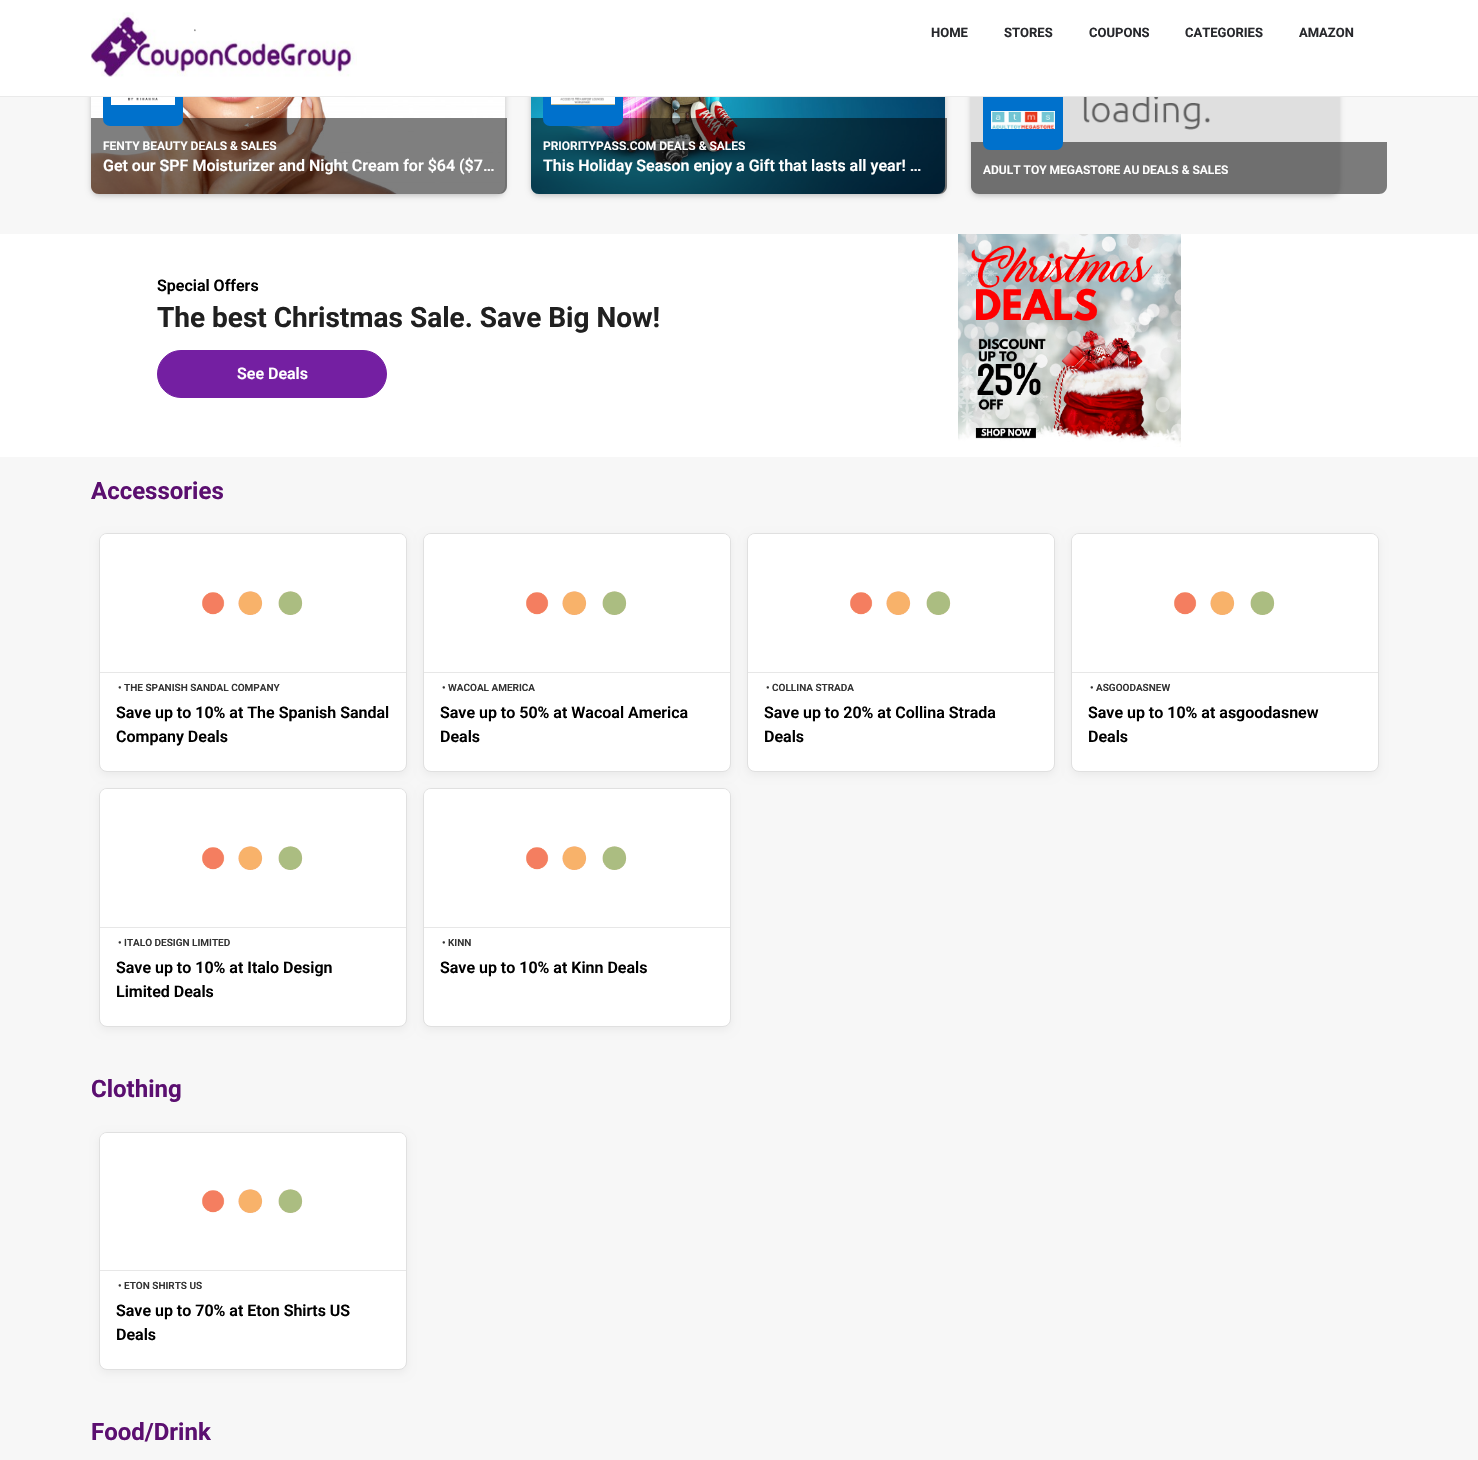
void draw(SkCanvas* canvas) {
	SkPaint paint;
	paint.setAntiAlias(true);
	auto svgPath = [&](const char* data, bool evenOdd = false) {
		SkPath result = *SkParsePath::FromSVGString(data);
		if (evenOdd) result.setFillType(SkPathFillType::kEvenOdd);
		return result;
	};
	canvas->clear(0xfff7f7f7);
	paint.setColor(0xffb3b3b3);
	paint.setMaskFilter(SkMaskFilter::MakeBlur(kNormal_SkBlurStyle, 3));
	canvas->drawRoundRect(SkRect::MakeXYWH(92, -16, 412, 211), 7, 7, paint);
	paint.setMaskFilter(nullptr);
	canvas->drawImageRect(SkImages::DeferredFromEncodedData(SkData::MakeFromFileName("img2.png")), SkRect::MakeXYWH(91, 97, 414, 97), SkSamplingOptions());
	paint.setColor(0x80000000);
	canvas->drawPath(svgPath("M91 118H507V186C507 190.5 503.5 194 499 194H99C94.5 194 91 190.5 91 186Z"), paint);
	paint.setColor(0xff0071cc);
	canvas->drawRoundRect(SkRect::MakeXYWH(103, 66, 80, 60), 7, 7, paint);
	paint.setColor(0xffb3b3b3);
	paint.setMaskFilter(SkMaskFilter::MakeBlur(kNormal_SkBlurStyle, 3));
	canvas->drawRoundRect(SkRect::MakeXYWH(532, -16, 412, 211), 7, 7, paint);
	paint.setMaskFilter(nullptr);
	canvas->drawImageRect(SkImages::DeferredFromEncodedData(SkData::MakeFromFileName("img4.png")), SkRect::MakeXYWH(531, 97, 414, 97), SkSamplingOptions());
	paint.setColor(0x80000000);
	canvas->drawPath(svgPath("M531 118H947V186C947 190.5 943.5 194 939 194H539C534.5 194 531 190.5 531 186Z"), paint);
	paint.setColor(0xff0071cc);
	canvas->drawRoundRect(SkRect::MakeXYWH(543, 66, 80, 60), 7, 7, paint);
	paint.setColor(0xffb3b3b3);
	paint.setMaskFilter(SkMaskFilter::MakeBlur(kNormal_SkBlurStyle, 3));
	canvas->drawRoundRect(SkRect::MakeXYWH(972, -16, 366, 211), 7, 7, paint);
	paint.setMaskFilter(nullptr);
	canvas->drawImageRect(SkImages::DeferredFromEncodedData(SkData::MakeFromFileName("img6.png")), SkRect::MakeXYWH(971, 97, 368, 97), SkSamplingOptions());
	paint.setColor(0x80000000);
	canvas->drawPath(svgPath("M971 142H1387V186C1387 190.5 1383.5 194 1379 194H979C974.5 194 971 190.5 971 186Z"), paint);
	paint.setColor(0xff0071cc);
	canvas->drawRoundRect(SkRect::MakeXYWH(983, 90, 80, 60), 7, 7, paint);
	paint.setColor(0xffffffff);
	canvas->drawRect(SkRect::MakeXYWH(0, 0, 1478, 96), paint);
	paint.setColor(0xffeaeaea);
	canvas->drawRect(SkRect::MakeXYWH(0, 96, 1478, 1), paint);
	canvas->drawImageRect(SkImages::DeferredFromEncodedData(SkData::MakeFromFileName("img1.png")), SkRect::MakeXYWH(91, 12, 266, 65), SkSamplingOptions());
	SkFont f1(fontMgr->matchFamilyStyle("Roboto", SkFontStyle::Bold()), 13);
	f1.setSubpixel(true);
	paint.setColor(0xff27282c);
	canvas->drawString("HOME", 931, 37, f1, paint);
	canvas->drawString("STORES", 1004, 37, f1, paint);
	canvas->drawString("COUPONS", 1089, 37, f1, paint);
	canvas->drawString("CATEGORIES", 1185, 37, f1, paint);
	canvas->drawString("AMAZON", 1299, 37, f1, paint);
	canvas->drawImageRect(SkImages::DeferredFromEncodedData(SkData::MakeFromFileName("img3.png")), SkRect::MakeXYWH(111, 97, 64, 8), SkSamplingOptions());
	SkFont f2(fontMgr->matchFamilyStyle("Roboto", SkFontStyle(600, SkFontStyle::kNormal_Width, SkFontStyle::kUpright_Slant)), 12);
	f2.setSubpixel(true);
	paint.setColor(0xffffffff);
	canvas->drawString("FENTY BEAUTY DEALS & SALES", 103, 150, f2, paint);
	SkFont f3(fontMgr->matchFamilyStyle("Roboto", SkFontStyle(600, SkFontStyle::kNormal_Width, SkFontStyle::kUpright_Slant)), 16);
	f3.setSubpixel(true);
	canvas->drawString("Get our SPF Moisturizer and Night Cream for $64 ($7…", 103, 171, f3, paint);
	canvas->drawImageRect(SkImages::DeferredFromEncodedData(SkData::MakeFromFileName("img5.png")), SkRect::MakeXYWH(551, 97, 64, 8), SkSamplingOptions());
	canvas->drawString("PRIORITYPASS.COM DEALS & SALES", 543, 150, f2, paint);
	canvas->drawString("This Holiday Season enjoy a Gift that lasts all year! …", 543, 171, f3, paint);
	canvas->drawImageRect(SkImages::DeferredFromEncodedData(SkData::MakeFromFileName("img7.png")), SkRect::MakeXYWH(991, 111, 64, 18), SkSamplingOptions());
	canvas->drawString("ADULT TOY MEGASTORE AU DEALS & SALES", 983, 174, f2, paint);
	canvas->drawRect(SkRect::MakeXYWH(0, 234, 1478, 223), paint);
	paint.setColor(0xff000000);
	canvas->drawString("Special Offers", 157, 291, f3, paint);
	SkFont f4(fontMgr->matchFamilyStyle("Roboto", SkFontStyle::Bold()), 28);
	f4.setSubpixel(true);
	paint.setColor(0xff202020);
	canvas->drawString("The best Christmas Sale. Save Big Now!", 157, 327, f4, paint);
	paint.setColor(0xff741fa2);
	canvas->drawRoundRect(SkRect::MakeXYWH(157.5, 350.5, 229, 47), 23.5, 23.5, paint);
	paint.setStroke(true);
	paint.setStrokeWidth(1);
	canvas->drawRoundRect(SkRect::MakeXYWH(157.5, 350.5, 229, 47), 23.5, 23.5, paint);
	paint.setStroke(false);
	paint.setColor(0xffffffff);
	canvas->drawString("See Deals", 237, 379, f3, paint);
	canvas->drawImageRect(SkImages::DeferredFromEncodedData(SkData::MakeFromFileName("img8.png")), SkRect::MakeXYWH(958, 234, 223, 213), SkSamplingOptions());
	SkFont f5(fontMgr->matchFamilyStyle("Roboto", SkFontStyle::Bold()), 24);
	f5.setSubpixel(true);
	paint.setColor(0xff5b0f70);
	canvas->drawString("Accessories", 91, 499, f5, paint);
	paint.setColor(0x0d000000);
	paint.setMaskFilter(SkMaskFilter::MakeBlur(kNormal_SkBlurStyle, 4));
	canvas->drawRoundRect(SkRect::MakeXYWH(99, 536, 308, 239), 8, 8, paint);
	paint.setMaskFilter(nullptr);
	paint.setColor(0xffffffff);
	canvas->drawRoundRect(SkRect::MakeXYWH(99.5, 533.5, 307, 238), 7.5, 7.5, paint);
	paint.setStroke(true);
	paint.setColor(0xffe0e0e0);
	canvas->drawRoundRect(SkRect::MakeXYWH(99.5, 533.5, 307, 238), 7.5, 7.5, paint);
	paint.setStroke(false);
	paint.setColor(0xffffffff);
	canvas->drawPath(svgPath("M107 534H399C403 534 406 537 406 541V673H100V541C100 537 103 534 107 534Z"), paint);
	paint.setColor(0xffe7e7e7);
	canvas->drawRect(SkRect::MakeXYWH(100, 672, 306, 1), paint);
	canvas->drawImageRect(SkImages::DeferredFromEncodedData(SkData::MakeFromFileName("img9.png")), SkRect::MakeXYWH(202, 591, 101, 24), SkSamplingOptions());
	SkFont f6(fontMgr->matchFamilyStyle("Roboto", SkFontStyle(600, SkFontStyle::kNormal_Width, SkFontStyle::kUpright_Slant)), 10);
	f6.setSubpixel(true);
	paint.setColor(0xff323232);
	canvas->drawString("• THE SPANISH SANDAL COMPANY", 118, 691, f6, paint);
	paint.setColor(0xff000000);
	canvas->drawString("Save up to 10% at The Spanish Sandal", 116, 718, f3, paint);
	canvas->drawString("Company Deals", 116, 742, f3, paint);
	paint.setColor(0x0d000000);
	paint.setMaskFilter(SkMaskFilter::MakeBlur(kNormal_SkBlurStyle, 4));
	canvas->drawRoundRect(SkRect::MakeXYWH(423, 536, 308, 239), 8, 8, paint);
	paint.setMaskFilter(nullptr);
	paint.setColor(0xffffffff);
	canvas->drawRoundRect(SkRect::MakeXYWH(423.5, 533.5, 307, 238), 7.5, 7.5, paint);
	paint.setStroke(true);
	paint.setColor(0xffe0e0e0);
	canvas->drawRoundRect(SkRect::MakeXYWH(423.5, 533.5, 307, 238), 7.5, 7.5, paint);
	paint.setStroke(false);
	paint.setColor(0xffffffff);
	canvas->drawPath(svgPath("M431 534H723C727 534 730 537 730 541V673H424V541C424 537 427 534 431 534Z"), paint);
	paint.setColor(0xffe7e7e7);
	canvas->drawRect(SkRect::MakeXYWH(424, 672, 306, 1), paint);
	canvas->drawImageRect(SkImages::DeferredFromEncodedData(SkData::MakeFromFileName("img9.png")), SkRect::MakeXYWH(526, 591, 101, 24), SkSamplingOptions());
	paint.setColor(0xff323232);
	canvas->drawString("• WACOAL AMERICA", 442, 691, f6, paint);
	paint.setColor(0xff000000);
	canvas->drawString("Save up to 50% at Wacoal America", 440, 718, f3, paint);
	canvas->drawString("Deals", 440, 742, f3, paint);
	paint.setColor(0x0d000000);
	paint.setMaskFilter(SkMaskFilter::MakeBlur(kNormal_SkBlurStyle, 4));
	canvas->drawRoundRect(SkRect::MakeXYWH(747, 536, 308, 239), 8, 8, paint);
	paint.setMaskFilter(nullptr);
	paint.setColor(0xffffffff);
	canvas->drawRoundRect(SkRect::MakeXYWH(747.5, 533.5, 307, 238), 7.5, 7.5, paint);
	paint.setStroke(true);
	paint.setColor(0xffe0e0e0);
	canvas->drawRoundRect(SkRect::MakeXYWH(747.5, 533.5, 307, 238), 7.5, 7.5, paint);
	paint.setStroke(false);
	paint.setColor(0xffffffff);
	canvas->drawPath(svgPath("M755 534H1047C1051 534 1054 537 1054 541V673H748V541C748 537 751 534 755 534Z"), paint);
	paint.setColor(0xffe7e7e7);
	canvas->drawRect(SkRect::MakeXYWH(748, 672, 306, 1), paint);
	canvas->drawImageRect(SkImages::DeferredFromEncodedData(SkData::MakeFromFileName("img9.png")), SkRect::MakeXYWH(850, 591, 101, 24), SkSamplingOptions());
	paint.setColor(0xff323232);
	canvas->drawString("• COLLINA STRADA", 766, 691, f6, paint);
	paint.setColor(0xff000000);
	canvas->drawString("Save up to 20% at Collina Strada", 764, 718, f3, paint);
	canvas->drawString("Deals", 764, 742, f3, paint);
	paint.setColor(0x0d000000);
	paint.setMaskFilter(SkMaskFilter::MakeBlur(kNormal_SkBlurStyle, 4));
	canvas->drawRoundRect(SkRect::MakeXYWH(1071, 536, 308, 239), 8, 8, paint);
	paint.setMaskFilter(nullptr);
	paint.setColor(0xffffffff);
	canvas->drawRoundRect(SkRect::MakeXYWH(1071.5, 533.5, 307, 238), 7.5, 7.5, paint);
	paint.setStroke(true);
	paint.setColor(0xffe0e0e0);
	canvas->drawRoundRect(SkRect::MakeXYWH(1071.5, 533.5, 307, 238), 7.5, 7.5, paint);
	paint.setStroke(false);
	paint.setColor(0xffffffff);
	canvas->drawPath(svgPath("M1079 534H1371C1375 534 1378 537 1378 541V673H1072V541C1072 537 1075 534 1079 534Z"), paint);
	paint.setColor(0xffe7e7e7);
	canvas->drawRect(SkRect::MakeXYWH(1072, 672, 306, 1), paint);
	canvas->drawImageRect(SkImages::DeferredFromEncodedData(SkData::MakeFromFileName("img9.png")), SkRect::MakeXYWH(1174, 591, 101, 24), SkSamplingOptions());
	paint.setColor(0xff323232);
	canvas->drawString("• ASGOODASNEW", 1090, 691, f6, paint);
	paint.setColor(0xff000000);
	canvas->drawString("Save up to 10% at asgoodasnew", 1088, 718, f3, paint);
	canvas->drawString("Deals", 1088, 742, f3, paint);
	paint.setColor(0x0d000000);
	paint.setMaskFilter(SkMaskFilter::MakeBlur(kNormal_SkBlurStyle, 4));
	canvas->drawRoundRect(SkRect::MakeXYWH(99, 791, 308, 239), 8, 8, paint);
	paint.setMaskFilter(nullptr);
	paint.setColor(0xffffffff);
	canvas->drawRoundRect(SkRect::MakeXYWH(99.5, 788.5, 307, 238), 7.5, 7.5, paint);
	paint.setStroke(true);
	paint.setColor(0xffe0e0e0);
	canvas->drawRoundRect(SkRect::MakeXYWH(99.5, 788.5, 307, 238), 7.5, 7.5, paint);
	paint.setStroke(false);
	paint.setColor(0xffffffff);
	canvas->drawPath(svgPath("M107 789H399C403 789 406 792 406 796V928H100V796C100 792 103 789 107 789Z"), paint);
	paint.setColor(0xffe7e7e7);
	canvas->drawRect(SkRect::MakeXYWH(100, 927, 306, 1), paint);
	canvas->drawImageRect(SkImages::DeferredFromEncodedData(SkData::MakeFromFileName("img9.png")), SkRect::MakeXYWH(202, 846, 101, 24), SkSamplingOptions());
	paint.setColor(0xff323232);
	canvas->drawString("• ITALO DESIGN LIMITED", 118, 946, f6, paint);
	paint.setColor(0xff000000);
	canvas->drawString("Save up to 10% at Italo Design", 116, 973, f3, paint);
	canvas->drawString("Limited Deals", 116, 997, f3, paint);
	paint.setColor(0x0d000000);
	paint.setMaskFilter(SkMaskFilter::MakeBlur(kNormal_SkBlurStyle, 4));
	canvas->drawRoundRect(SkRect::MakeXYWH(423, 791, 308, 239), 8, 8, paint);
	paint.setMaskFilter(nullptr);
	paint.setColor(0xffffffff);
	canvas->drawRoundRect(SkRect::MakeXYWH(423.5, 788.5, 307, 238), 7.5, 7.5, paint);
	paint.setStroke(true);
	paint.setColor(0xffe0e0e0);
	canvas->drawRoundRect(SkRect::MakeXYWH(423.5, 788.5, 307, 238), 7.5, 7.5, paint);
	paint.setStroke(false);
	paint.setColor(0xffffffff);
	canvas->drawPath(svgPath("M431 789H723C727 789 730 792 730 796V928H424V796C424 792 427 789 431 789Z"), paint);
	paint.setColor(0xffe7e7e7);
	canvas->drawRect(SkRect::MakeXYWH(424, 927, 306, 1), paint);
	canvas->drawImageRect(SkImages::DeferredFromEncodedData(SkData::MakeFromFileName("img9.png")), SkRect::MakeXYWH(526, 846, 101, 24), SkSamplingOptions());
	paint.setColor(0xff323232);
	canvas->drawString("• KINN", 442, 946, f6, paint);
	paint.setColor(0xff000000);
	canvas->drawString("Save up to 10% at Kinn Deals", 440, 973, f3, paint);
	paint.setColor(0xff5b0f70);
	canvas->drawString("Clothing", 91, 1097, f5, paint);
	paint.setColor(0x0d000000);
	paint.setMaskFilter(SkMaskFilter::MakeBlur(kNormal_SkBlurStyle, 4));
	canvas->drawRoundRect(SkRect::MakeXYWH(99, 1135, 308, 238), 8, 8, paint);
	paint.setMaskFilter(nullptr);
	paint.setColor(0xffffffff);
	canvas->drawRoundRect(SkRect::MakeXYWH(99.5, 1132.5, 307, 237), 7.5, 7.5, paint);
	paint.setStroke(true);
	paint.setColor(0xffe0e0e0);
	canvas->drawRoundRect(SkRect::MakeXYWH(99.5, 1132.5, 307, 237), 7.5, 7.5, paint);
	paint.setStroke(false);
	paint.setColor(0xffffffff);
	canvas->drawPath(svgPath("M107 1133H399C403 1133 406 1136 406 1140V1271H100V1140C100 1136 103 1133 107 1133Z"), paint);
	paint.setColor(0xffe7e7e7);
	canvas->drawRect(SkRect::MakeXYWH(100, 1270, 306, 1), paint);
	canvas->drawImageRect(SkImages::DeferredFromEncodedData(SkData::MakeFromFileName("img9.png")), SkRect::MakeXYWH(202, 1189, 101, 24), SkSamplingOptions());
	paint.setColor(0xff323232);
	canvas->drawString("• ETON SHIRTS US", 118, 1289, f6, paint);
	paint.setColor(0xff000000);
	canvas->drawString("Save up to 70% at Eton Shirts US", 116, 1316, f3, paint);
	canvas->drawString("Deals", 116, 1340, f3, paint);
	paint.setColor(0xff5b0f70);
	canvas->drawString("Food/Drink", 91, 1440, f5, paint);
}
